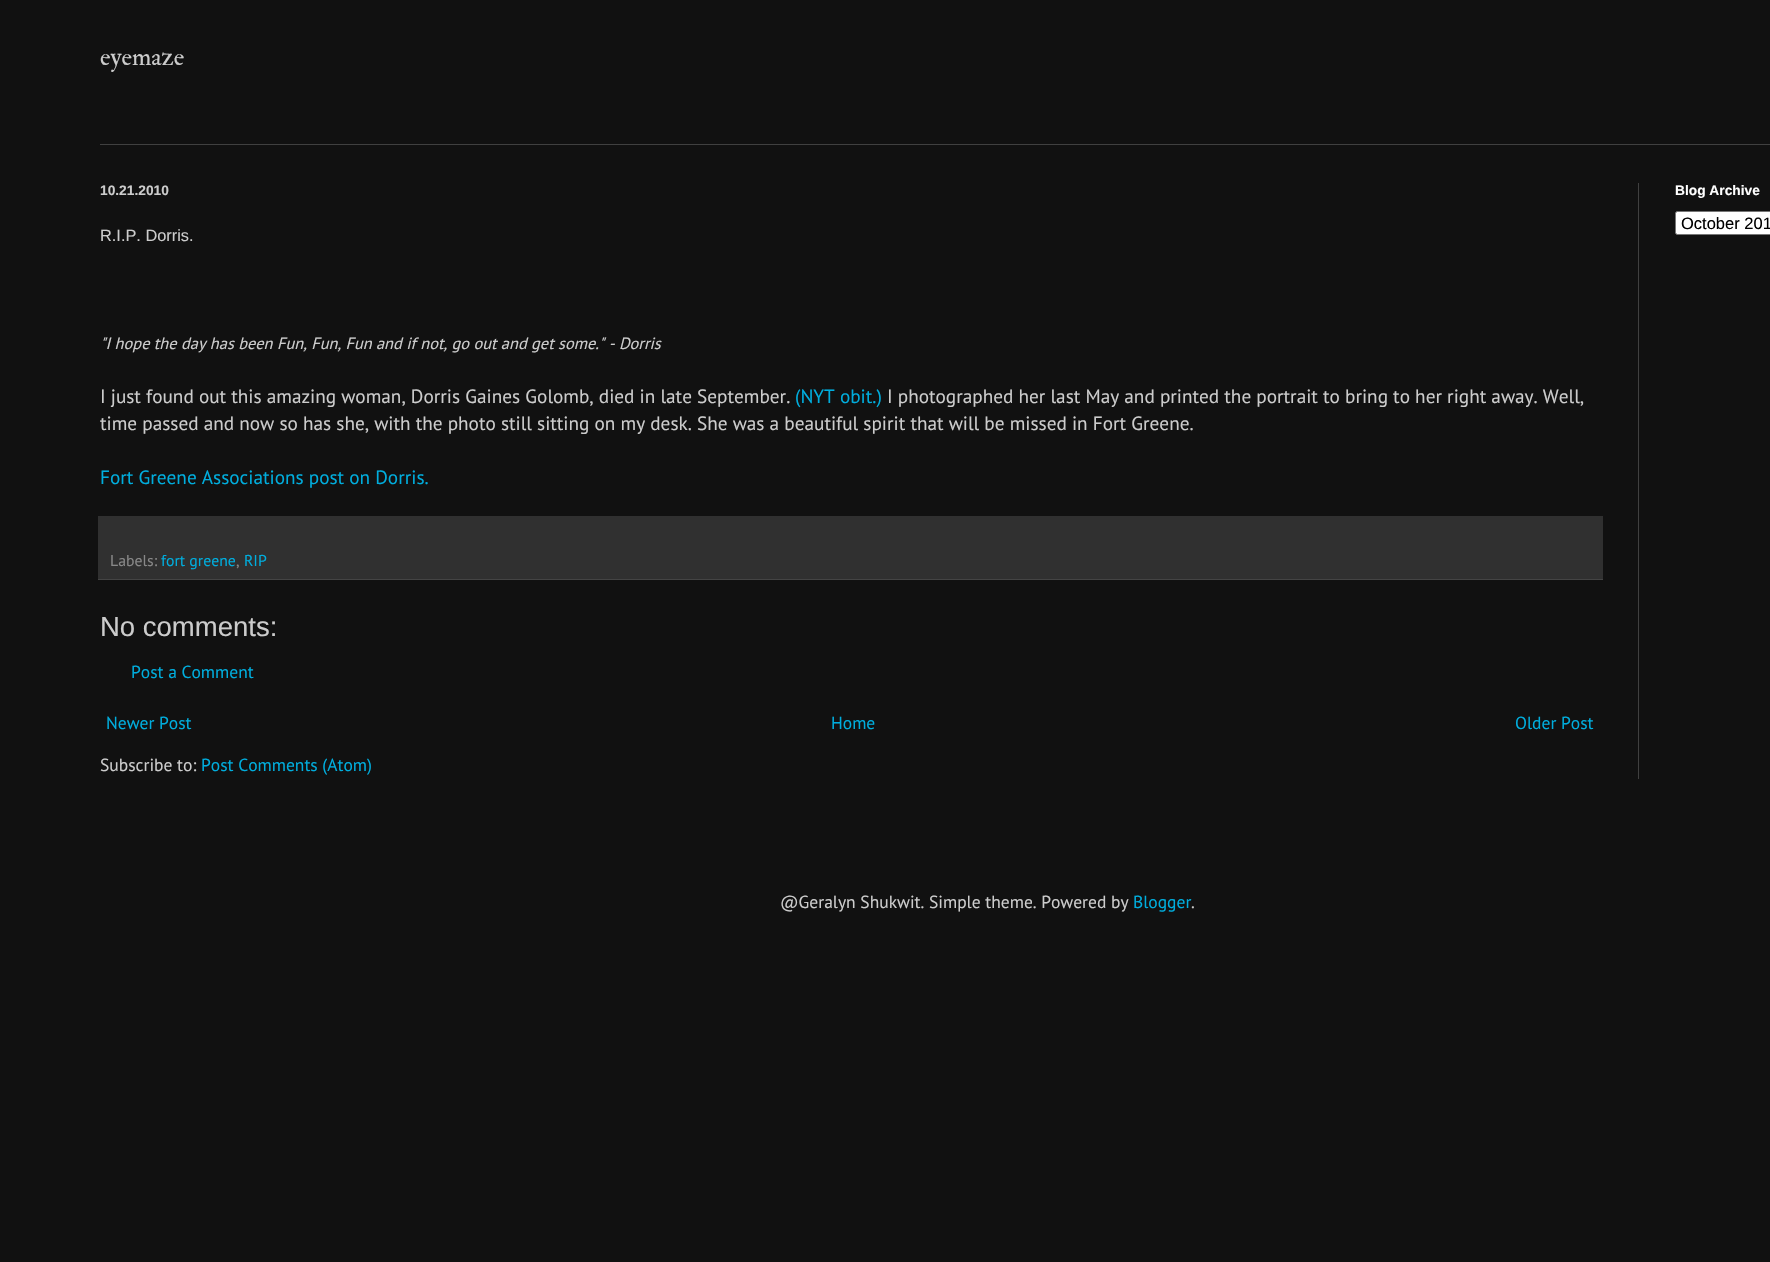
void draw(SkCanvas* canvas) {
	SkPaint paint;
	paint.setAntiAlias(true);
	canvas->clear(0xff111111);
	SkFont f1(fontMgr->matchFamilyStyle("IM FELL Double Pica", SkFontStyle::Normal()), 25);
	f1.setSubpixel(true);
	paint.setColor(0xffcccccc);
	canvas->drawString("eyemaze", 100, 65, f1, paint);
	paint.setColor(0xff404040);
	canvas->drawRect(SkRect::MakeXYWH(100, 144, 1670, 1), paint);
	canvas->drawRect(SkRect::MakeXYWH(1638, 183, 1, 596), paint);
	SkFont f2(fontMgr->matchFamilyStyle("Liberation Sans", SkFontStyle::Bold()), 13.75);
	f2.setSubpixel(true);
	paint.setColor(0xffcccccc);
	canvas->drawString("10.21.2010", 100, 195, f2, paint);
	SkFont f3(fontMgr->matchFamilyStyle("Liberation Sans", SkFontStyle::Normal()), 16.35);
	f3.setSubpixel(true);
	canvas->drawString("R.I.P. Dorris.", 100, 241, f3, paint);
	SkFont f4(fontMgr->matchFamilyStyle("PT Sans", SkFontStyle::Italic()), 16.35);
	f4.setSubpixel(true);
	canvas->drawString("\"I hope the day has been Fun, Fun, Fun and if not, go out and get some.\" - Dorris", 100, 349, f4, paint);
	SkFont f5(fontMgr->matchFamilyStyle("PT Sans", SkFontStyle::Normal()), 19.25);
	f5.setSubpixel(true);
	canvas->drawString("I just found out this amazing woman, Dorris Gaines Golomb, died in late September.", 100, 403, f5, paint);
	paint.setColor(0xff00addd);
	canvas->drawString("(NYT obit.)", 795, 403, f5, paint);
	paint.setColor(0xffcccccc);
	canvas->drawString("I photographed her last May and printed the portrait to bring to her right away. Well,", 887, 403, f5, paint);
	canvas->drawString("time passed and now so has she, with the photo still sitting on my desk. She was a beautiful spirit that will be missed in Fort Greene.", 100, 430, f5, paint);
	paint.setColor(0xff00addd);
	canvas->drawString("Fort Greene Associations post on Dorris.", 100, 484, f5, paint);
	paint.setColor(0xff303030);
	canvas->drawRect(SkRect::MakeXYWH(98, 516, 1505, 63), paint);
	paint.setColor(0xff444444);
	canvas->drawRect(SkRect::MakeXYWH(98, 579, 1505, 1), paint);
	SkFont f6(fontMgr->matchFamilyStyle("PT Sans", SkFontStyle::Normal()), 15.75);
	f6.setSubpixel(true);
	paint.setColor(0xff888888);
	canvas->drawString("Labels:", 110, 566, f6, paint);
	paint.setColor(0xff00addd);
	canvas->drawString("fort greene", 161, 566, f6, paint);
	paint.setColor(0xff888888);
	canvas->drawString(",", 236, 566, f6, paint);
	paint.setColor(0xff00addd);
	canvas->drawString("RIP", 244, 566, f6, paint);
	SkFont f7(fontMgr->matchFamilyStyle("Liberation Sans", SkFontStyle::Normal()), 27.5);
	f7.setSubpixel(true);
	paint.setColor(0xffcccccc);
	canvas->drawString("No comments:", 100, 636, f7, paint);
	SkFont f8(fontMgr->matchFamilyStyle("PT Sans", SkFontStyle::Normal()), 17.5);
	f8.setSubpixel(true);
	paint.setColor(0xff00addd);
	canvas->drawString("Post a Comment", 131, 678, f8, paint);
	canvas->drawString("Newer Post", 106, 729, f8, paint);
	canvas->drawString("Home", 831, 729, f8, paint);
	canvas->drawString("Older Post", 1515, 729, f8, paint);
	paint.setColor(0xffcccccc);
	canvas->drawString("Subscribe to:", 100, 771, f8, paint);
	paint.setColor(0xff00addd);
	canvas->drawString("Post Comments (Atom)", 201, 771, f8, paint);
	paint.setColor(0xffffffff);
	canvas->drawString("Blog Archive", 1675, 195, f2, paint);
	canvas->drawRoundRect(SkRect::MakeXYWH(1675.5, 211.5, 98, 23), 2, 2, paint);
	paint.setStroke(true);
	paint.setStrokeWidth(1);
	paint.setColor(0xff767676);
	canvas->drawRoundRect(SkRect::MakeXYWH(1675.5, 211.5, 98, 23), 2, 2, paint);
	SkFont f9(fontMgr->matchFamilyStyle("Liberation Sans", SkFontStyle::Normal()), 16.5);
	f9.setSubpixel(true);
	paint.setStroke(false);
	paint.setColor(0xff000000);
	canvas->drawString("October 201", 1681, 229, f9, paint);
	paint.setColor(0xffcccccc);
	canvas->drawString("@Geralyn Shukwit. Simple theme. Powered by", 780, 908, f8, paint);
	paint.setColor(0xff00addd);
	canvas->drawString("Blogger", 1133, 908, f8, paint);
	paint.setColor(0xffcccccc);
	canvas->drawString(".", 1191, 908, f8, paint);
}
